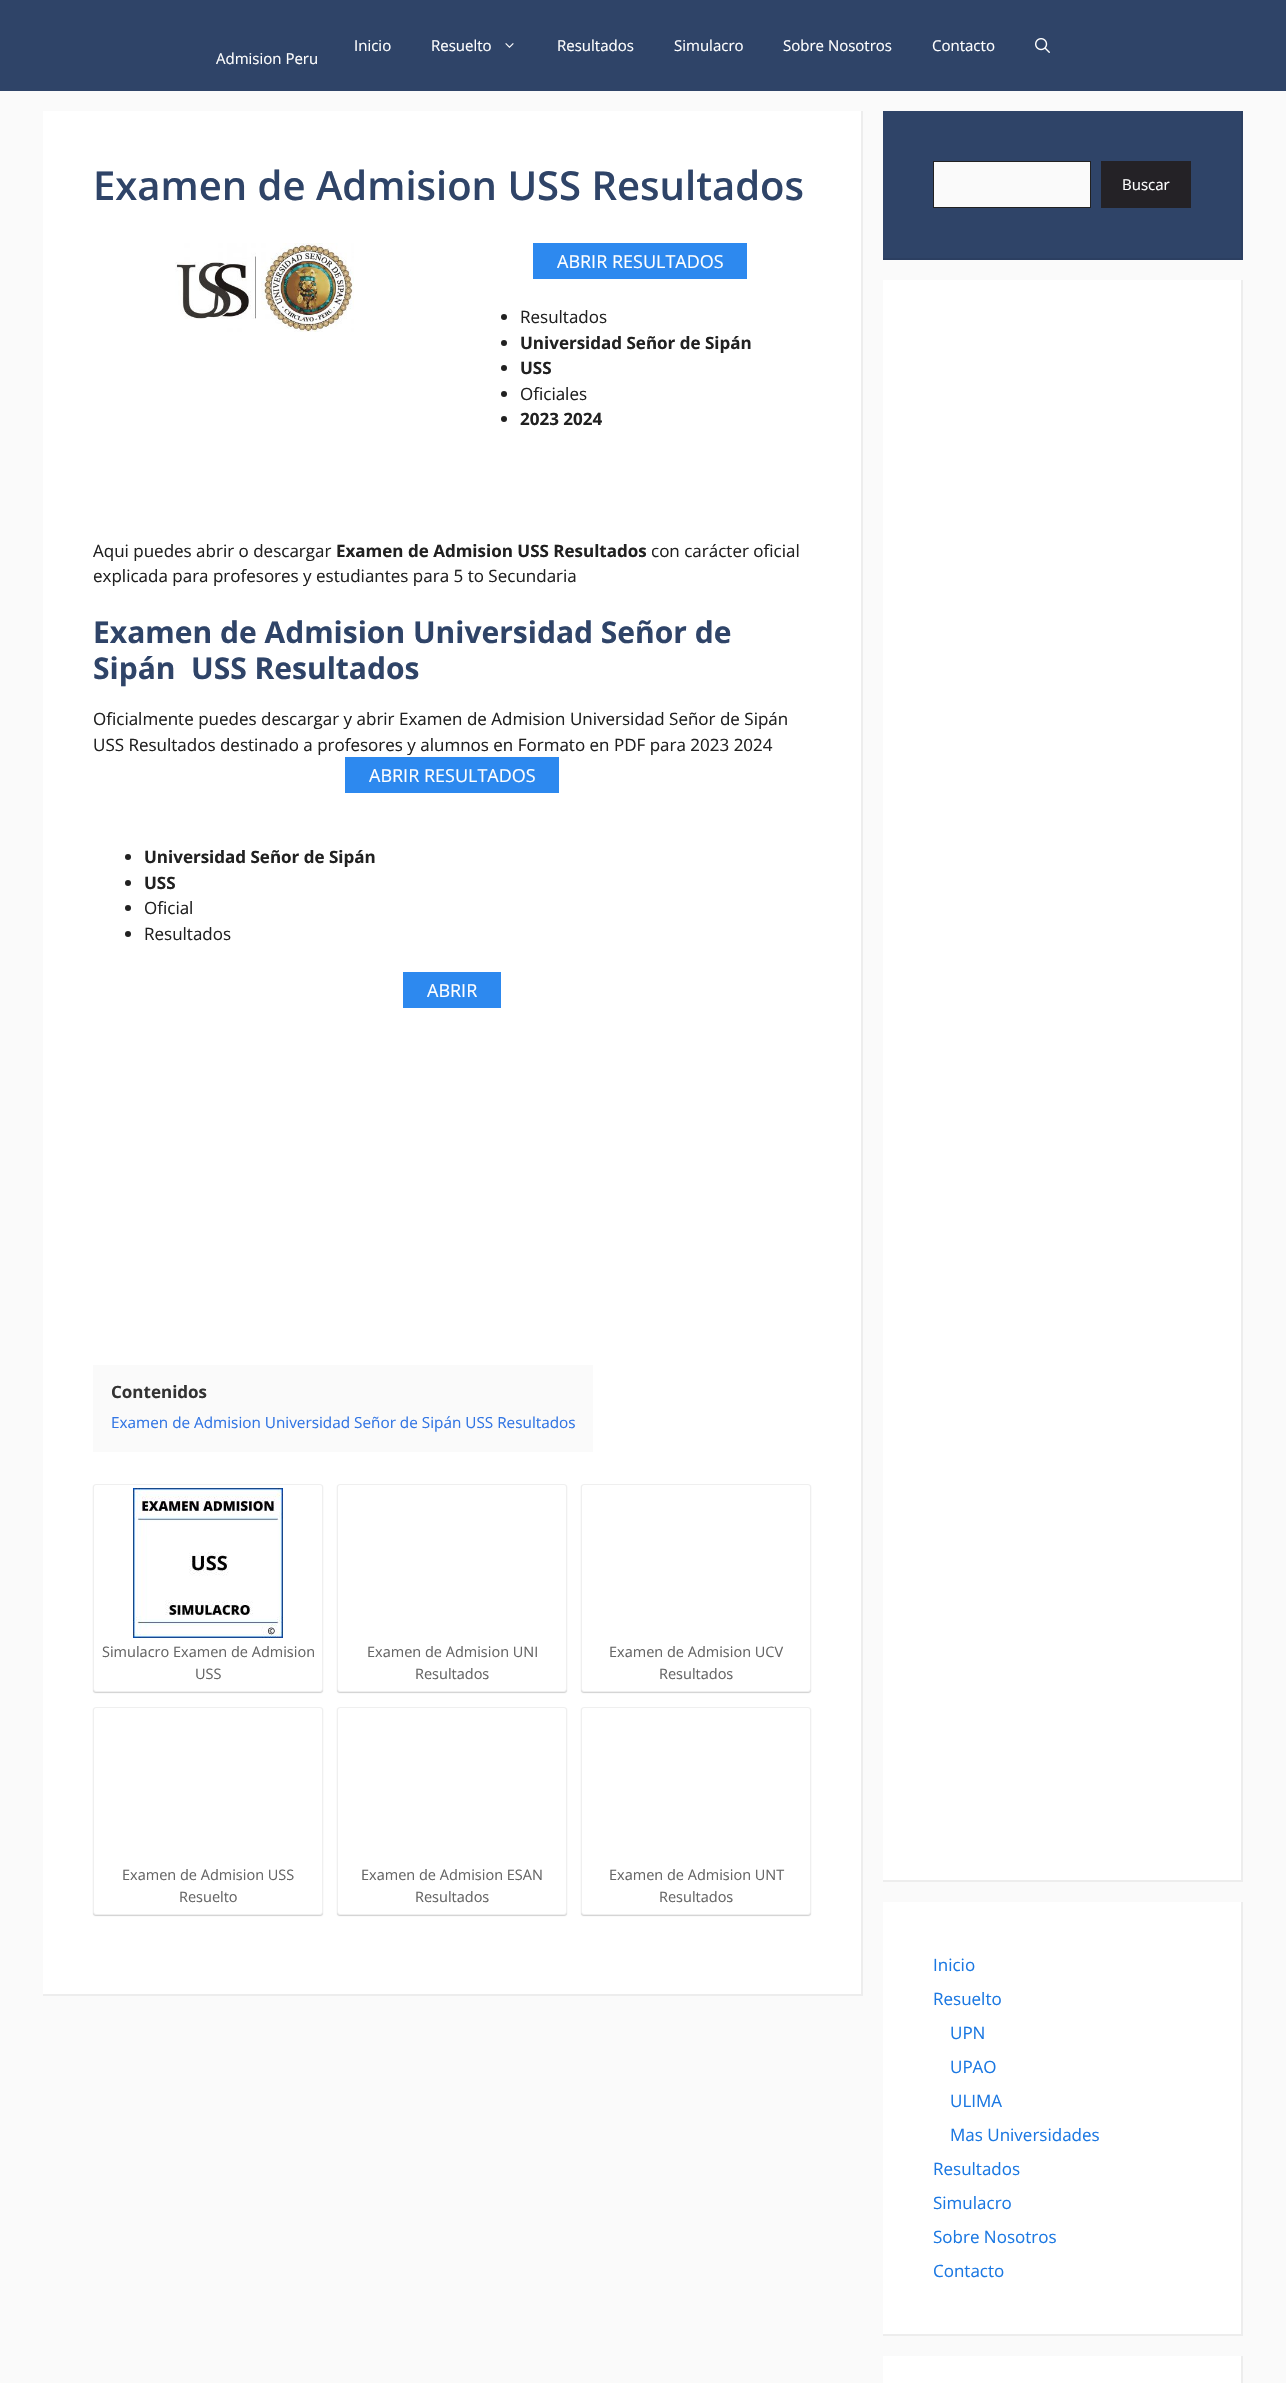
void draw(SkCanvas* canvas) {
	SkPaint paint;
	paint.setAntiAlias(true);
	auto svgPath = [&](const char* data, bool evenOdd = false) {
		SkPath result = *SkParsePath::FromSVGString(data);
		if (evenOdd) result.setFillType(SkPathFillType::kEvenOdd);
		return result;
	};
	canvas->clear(0xfffafafa);
	paint.setColor(0xff2f4468);
	canvas->drawRect(SkRect::MakeXYWH(0, 0, 1286, 91), paint);
	SkFont f1(fontMgr->matchFamilyStyle("Open Sans", SkFontStyle::Normal()), 15);
	f1.setSubpixel(true);
	paint.setColor(0xffffffff);
	canvas->drawString("Inicio", 354, 51, f1, paint);
	canvas->drawString("Resuelto", 431, 51, f1, paint);
	canvas->drawImageRect(SkImages::DeferredFromEncodedData(SkData::MakeFromFileName("img1.png")), SkRect::MakeXYWH(505, 43, 9, 5), SkSamplingOptions());
	canvas->drawString("Resultados", 557, 51, f1, paint);
	canvas->drawString("Simulacro", 674, 51, f1, paint);
	canvas->drawString("Sobre Nosotros", 783, 51, f1, paint);
	canvas->drawString("Contacto", 932, 51, f1, paint);
	canvas->drawImageRect(SkImages::DeferredFromEncodedData(SkData::MakeFromFileName("img2.png")), SkRect::MakeXYWH(1035, 38, 15, 15), SkSamplingOptions());
	canvas->drawString("Admision Peru", 216, 64, f1, paint);
	canvas->drawRect(SkRect::MakeXYWH(43, 111, 820, 1885), paint);
	paint.setColor(0xffededed);
	canvas->drawPath(svgPath("M863 111V1996L861 1994V111Z"), paint);
	paint.setColor(0x12000000);
	canvas->drawPath(svgPath("M863 1996H43V1994H861Z"), paint);
	SkFont f2(fontMgr->matchFamilyStyle("Open Sans", SkFontStyle(600, SkFontStyle::kNormal_Width, SkFontStyle::kUpright_Slant)), 40);
	f2.setSubpixel(true);
	paint.setColor(0xff2f4468);
	canvas->drawString("Examen de Admision USS Resultados", 93, 200, f2, paint);
	canvas->drawImageRect(SkImages::DeferredFromEncodedData(SkData::MakeFromFileName("img3.png")), SkRect::MakeXYWH(175, 243, 179, 89), SkSamplingOptions());
	paint.setColor(0xff2d89ef);
	canvas->drawRect(SkRect::MakeXYWH(533, 243, 214, 36), paint);
	SkFont f3(fontMgr->matchFamilyStyle("Open Sans", SkFontStyle::Normal()), 18);
	f3.setSubpixel(true);
	paint.setColor(0xffffffff);
	canvas->drawString("ABRIR RESULTADOS", 557, 268, f3, paint);
	paint.setColor(0xff212121);
	canvas->drawCircle(504, 317, 3, paint);
	SkFont f4(fontMgr->matchFamilyStyle("Open Sans", SkFontStyle::Normal()), 17);
	f4.setSubpixel(true);
	canvas->drawString("Resultados", 520, 323, f4, paint);
	canvas->drawCircle(504, 343, 3, paint);
	SkFont f5(fontMgr->matchFamilyStyle("Open Sans", SkFontStyle::Bold()), 17);
	f5.setSubpixel(true);
	canvas->drawString("Universidad Señor de Sipán", 520, 349, f5, paint);
	canvas->drawCircle(504, 368, 3, paint);
	canvas->drawString("USS", 520, 374, f5, paint);
	canvas->drawCircle(504, 394, 3, paint);
	canvas->drawString("Oficiales", 520, 400, f4, paint);
	canvas->drawCircle(504, 419, 3, paint);
	canvas->drawString("2023 2024", 520, 425, f5, paint);
	canvas->drawString("Aqui puedes abrir o descargar", 93, 557, f4, paint);
	canvas->drawString("Examen de Admision USS Resultados", 336, 557, f5, paint);
	canvas->drawString("con carácter oficial", 651, 557, f4, paint);
	canvas->drawString("explicada para profesores y estudiantes para 5 to Secundaria", 93, 582, f4, paint);
	SkFont f6(fontMgr->matchFamilyStyle("Open Sans", SkFontStyle::Bold()), 30);
	f6.setSubpixel(true);
	paint.setColor(0xff2f4468);
	canvas->drawString("Examen de Admision Universidad Señor de", 93, 643, f6, paint);
	canvas->drawString("Sipán", 93, 679, f6, paint);
	canvas->drawString("USS Resultados", 191, 679, f6, paint);
	paint.setColor(0xff212121);
	canvas->drawString("Oficialmente puedes descargar y abrir Examen de Admision Universidad Señor de Sipán", 93, 725, f4, paint);
	canvas->drawString("USS Resultados destinado a profesores y alumnos en Formato en PDF para 2023 2024", 93, 751, f4, paint);
	paint.setColor(0xff2d89ef);
	canvas->drawRect(SkRect::MakeXYWH(345, 757, 214, 36), paint);
	paint.setColor(0xffffffff);
	canvas->drawString("ABRIR RESULTADOS", 369, 782, f3, paint);
	paint.setColor(0xff212121);
	canvas->drawCircle(128, 857, 3, paint);
	canvas->drawString("Universidad Señor de Sipán", 144, 863, f5, paint);
	canvas->drawCircle(128, 883, 3, paint);
	canvas->drawString("USS", 144, 889, f5, paint);
	canvas->drawCircle(128, 908, 3, paint);
	canvas->drawString("Oficial", 144, 914, f4, paint);
	canvas->drawCircle(128, 934, 3, paint);
	canvas->drawString("Resultados", 144, 940, f4, paint);
	paint.setColor(0xff2d89ef);
	canvas->drawRect(SkRect::MakeXYWH(403, 972, 98, 36), paint);
	paint.setColor(0xffffffff);
	canvas->drawString("ABRIR", 427, 997, f3, paint);
	paint.setColor(0xfffafafa);
	canvas->drawRect(SkRect::MakeXYWH(93, 1365, 500, 87), paint);
	paint.setColor(0xff333333);
	canvas->drawString("Contenidos", 111, 1398, f5, paint);
	SkFont f7(fontMgr->matchFamilyStyle("Open Sans", SkFontStyle::Normal()), 15.3);
	f7.setSubpixel(true);
	paint.setColor(0xff3175e4);
	canvas->drawString("Examen de Admision Universidad Señor de Sipán USS Resultados", 111, 1428, f7, paint);
	paint.setColor(0x2e000000);
	paint.setMaskFilter(SkMaskFilter::MakeBlur(kNormal_SkBlurStyle, 0.5));
	canvas->drawRoundRect(SkRect::MakeXYWH(93, 1485, 230, 208), 3, 3, paint);
	paint.setMaskFilter(nullptr);
	paint.setColor(0xffffffff);
	canvas->drawRoundRect(SkRect::MakeXYWH(93.5, 1484.5, 229, 207), 2.5, 2.5, paint);
	paint.setStroke(true);
	paint.setStrokeWidth(1);
	paint.setColor(0xffefefef);
	canvas->drawRoundRect(SkRect::MakeXYWH(93.5, 1484.5, 229, 207), 2.5, 2.5, paint);
	canvas->drawImageRect(SkImages::DeferredFromEncodedData(SkData::MakeFromFileName("img4.png")), SkRect::MakeXYWH(133, 1488, 150, 150), SkSamplingOptions());
	SkFont f8(fontMgr->matchFamilyStyle("Open Sans", SkFontStyle::Normal()), 14.5);
	f8.setSubpixel(true);
	paint.setStroke(false);
	paint.setColor(0xff666666);
	canvas->drawString("Simulacro Examen de Admision", 102, 1657, f8, paint);
	canvas->drawString("USS", 195, 1679, f8, paint);
	paint.setColor(0x2e000000);
	paint.setMaskFilter(SkMaskFilter::MakeBlur(kNormal_SkBlurStyle, 0.5));
	canvas->drawRoundRect(SkRect::MakeXYWH(337, 1485, 230, 208), 3, 3, paint);
	paint.setMaskFilter(nullptr);
	paint.setColor(0xffffffff);
	canvas->drawRoundRect(SkRect::MakeXYWH(337.5, 1484.5, 229, 207), 2.5, 2.5, paint);
	paint.setStroke(true);
	paint.setColor(0xffefefef);
	canvas->drawRoundRect(SkRect::MakeXYWH(337.5, 1484.5, 229, 207), 2.5, 2.5, paint);
	paint.setStroke(false);
	paint.setColor(0xff666666);
	canvas->drawString("Examen de Admision UNI", 367, 1657, f8, paint);
	canvas->drawString("Resultados", 415, 1679, f8, paint);
	paint.setColor(0x2e000000);
	paint.setMaskFilter(SkMaskFilter::MakeBlur(kNormal_SkBlurStyle, 0.5));
	canvas->drawRoundRect(SkRect::MakeXYWH(581, 1485, 230, 208), 3, 3, paint);
	paint.setMaskFilter(nullptr);
	paint.setColor(0xffffffff);
	canvas->drawRoundRect(SkRect::MakeXYWH(581.5, 1484.5, 229, 207), 2.5, 2.5, paint);
	paint.setStroke(true);
	paint.setColor(0xffefefef);
	canvas->drawRoundRect(SkRect::MakeXYWH(581.5, 1484.5, 229, 207), 2.5, 2.5, paint);
	paint.setStroke(false);
	paint.setColor(0xff666666);
	canvas->drawString("Examen de Admision UCV", 609, 1657, f8, paint);
	canvas->drawString("Resultados", 659, 1679, f8, paint);
	paint.setColor(0x2e000000);
	paint.setMaskFilter(SkMaskFilter::MakeBlur(kNormal_SkBlurStyle, 0.5));
	canvas->drawRoundRect(SkRect::MakeXYWH(93, 1708, 230, 208), 3, 3, paint);
	paint.setMaskFilter(nullptr);
	paint.setColor(0xffffffff);
	canvas->drawRoundRect(SkRect::MakeXYWH(93.5, 1707.5, 229, 207), 2.5, 2.5, paint);
	paint.setStroke(true);
	paint.setColor(0xffefefef);
	canvas->drawRoundRect(SkRect::MakeXYWH(93.5, 1707.5, 229, 207), 2.5, 2.5, paint);
	paint.setStroke(false);
	paint.setColor(0xff666666);
	canvas->drawString("Examen de Admision USS", 122, 1880, f8, paint);
	canvas->drawString("Resuelto", 179, 1902, f8, paint);
	paint.setColor(0x2e000000);
	paint.setMaskFilter(SkMaskFilter::MakeBlur(kNormal_SkBlurStyle, 0.5));
	canvas->drawRoundRect(SkRect::MakeXYWH(337, 1708, 230, 208), 3, 3, paint);
	paint.setMaskFilter(nullptr);
	paint.setColor(0xffffffff);
	canvas->drawRoundRect(SkRect::MakeXYWH(337.5, 1707.5, 229, 207), 2.5, 2.5, paint);
	paint.setStroke(true);
	paint.setColor(0xffefefef);
	canvas->drawRoundRect(SkRect::MakeXYWH(337.5, 1707.5, 229, 207), 2.5, 2.5, paint);
	paint.setStroke(false);
	paint.setColor(0xff666666);
	canvas->drawString("Examen de Admision ESAN", 361, 1880, f8, paint);
	canvas->drawString("Resultados", 415, 1902, f8, paint);
	paint.setColor(0x2e000000);
	paint.setMaskFilter(SkMaskFilter::MakeBlur(kNormal_SkBlurStyle, 0.5));
	canvas->drawRoundRect(SkRect::MakeXYWH(581, 1708, 230, 208), 3, 3, paint);
	paint.setMaskFilter(nullptr);
	paint.setColor(0xffffffff);
	canvas->drawRoundRect(SkRect::MakeXYWH(581.5, 1707.5, 229, 207), 2.5, 2.5, paint);
	paint.setStroke(true);
	paint.setColor(0xffefefef);
	canvas->drawRoundRect(SkRect::MakeXYWH(581.5, 1707.5, 229, 207), 2.5, 2.5, paint);
	paint.setStroke(false);
	paint.setColor(0xff666666);
	canvas->drawString("Examen de Admision UNT", 609, 1880, f8, paint);
	canvas->drawString("Resultados", 659, 1902, f8, paint);
	paint.setColor(0xff2f4468);
	canvas->drawRect(SkRect::MakeXYWH(883, 111, 360, 149), paint);
	paint.setColor(0xff2c3f61);
	canvas->drawPath(svgPath("M1243 111V260L1241 258V111Z"), paint);
	paint.setColor(0x12000000);
	canvas->drawPath(svgPath("M1243 260H883V258H1241Z"), paint);
	paint.setColor(0xfffafafa);
	canvas->drawRect(SkRect::MakeXYWH(933.5, 161.5, 157, 46), paint);
	paint.setStroke(true);
	paint.setColor(0xff212121);
	canvas->drawRect(SkRect::MakeXYWH(933.5, 161.5, 157, 46), paint);
	paint.setStroke(false);
	paint.setColor(0xff242226);
	canvas->drawRect(SkRect::MakeXYWH(1101, 161, 90, 47), paint);
	paint.setColor(0xffffffff);
	canvas->drawString("Buscar", 1122, 190, f1, paint);
	canvas->drawRect(SkRect::MakeXYWH(883, 280, 360, 1602), paint);
	paint.setColor(0xffededed);
	canvas->drawPath(svgPath("M1243 280V1882L1241 1880V280Z"), paint);
	paint.setColor(0x12000000);
	canvas->drawPath(svgPath("M1243 1882H883V1880H1241Z"), paint);
	paint.setColor(0xffffffff);
	canvas->drawRect(SkRect::MakeXYWH(883, 1902, 360, 434), paint);
	paint.setColor(0xffededed);
	canvas->drawPath(svgPath("M1243 1902V2336L1241 2334V1902Z"), paint);
	paint.setColor(0x12000000);
	canvas->drawPath(svgPath("M1243 2336H883V2334H1241Z"), paint);
	paint.setColor(0xff1b78e2);
	canvas->drawString("Inicio", 933, 1971, f4, paint);
	canvas->drawString("Resuelto", 933, 2005, f4, paint);
	canvas->drawString("UPN", 950, 2039, f4, paint);
	canvas->drawString("UPAO", 950, 2073, f4, paint);
	canvas->drawString("ULIMA", 950, 2107, f4, paint);
	canvas->drawString("Mas Universidades", 950, 2141, f4, paint);
	canvas->drawString("Resultados", 933, 2175, f4, paint);
	canvas->drawString("Simulacro", 933, 2209, f4, paint);
	canvas->drawString("Sobre Nosotros", 933, 2243, f4, paint);
	canvas->drawString("Contacto", 933, 2277, f4, paint);
	paint.setColor(0xffffffff);
	canvas->drawRect(SkRect::MakeXYWH(883, 2356, 358, 27), paint);
	paint.setColor(0xffededed);
	canvas->drawPath(svgPath("M1243 2356V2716L1241 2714V2356Z"), paint);
}
